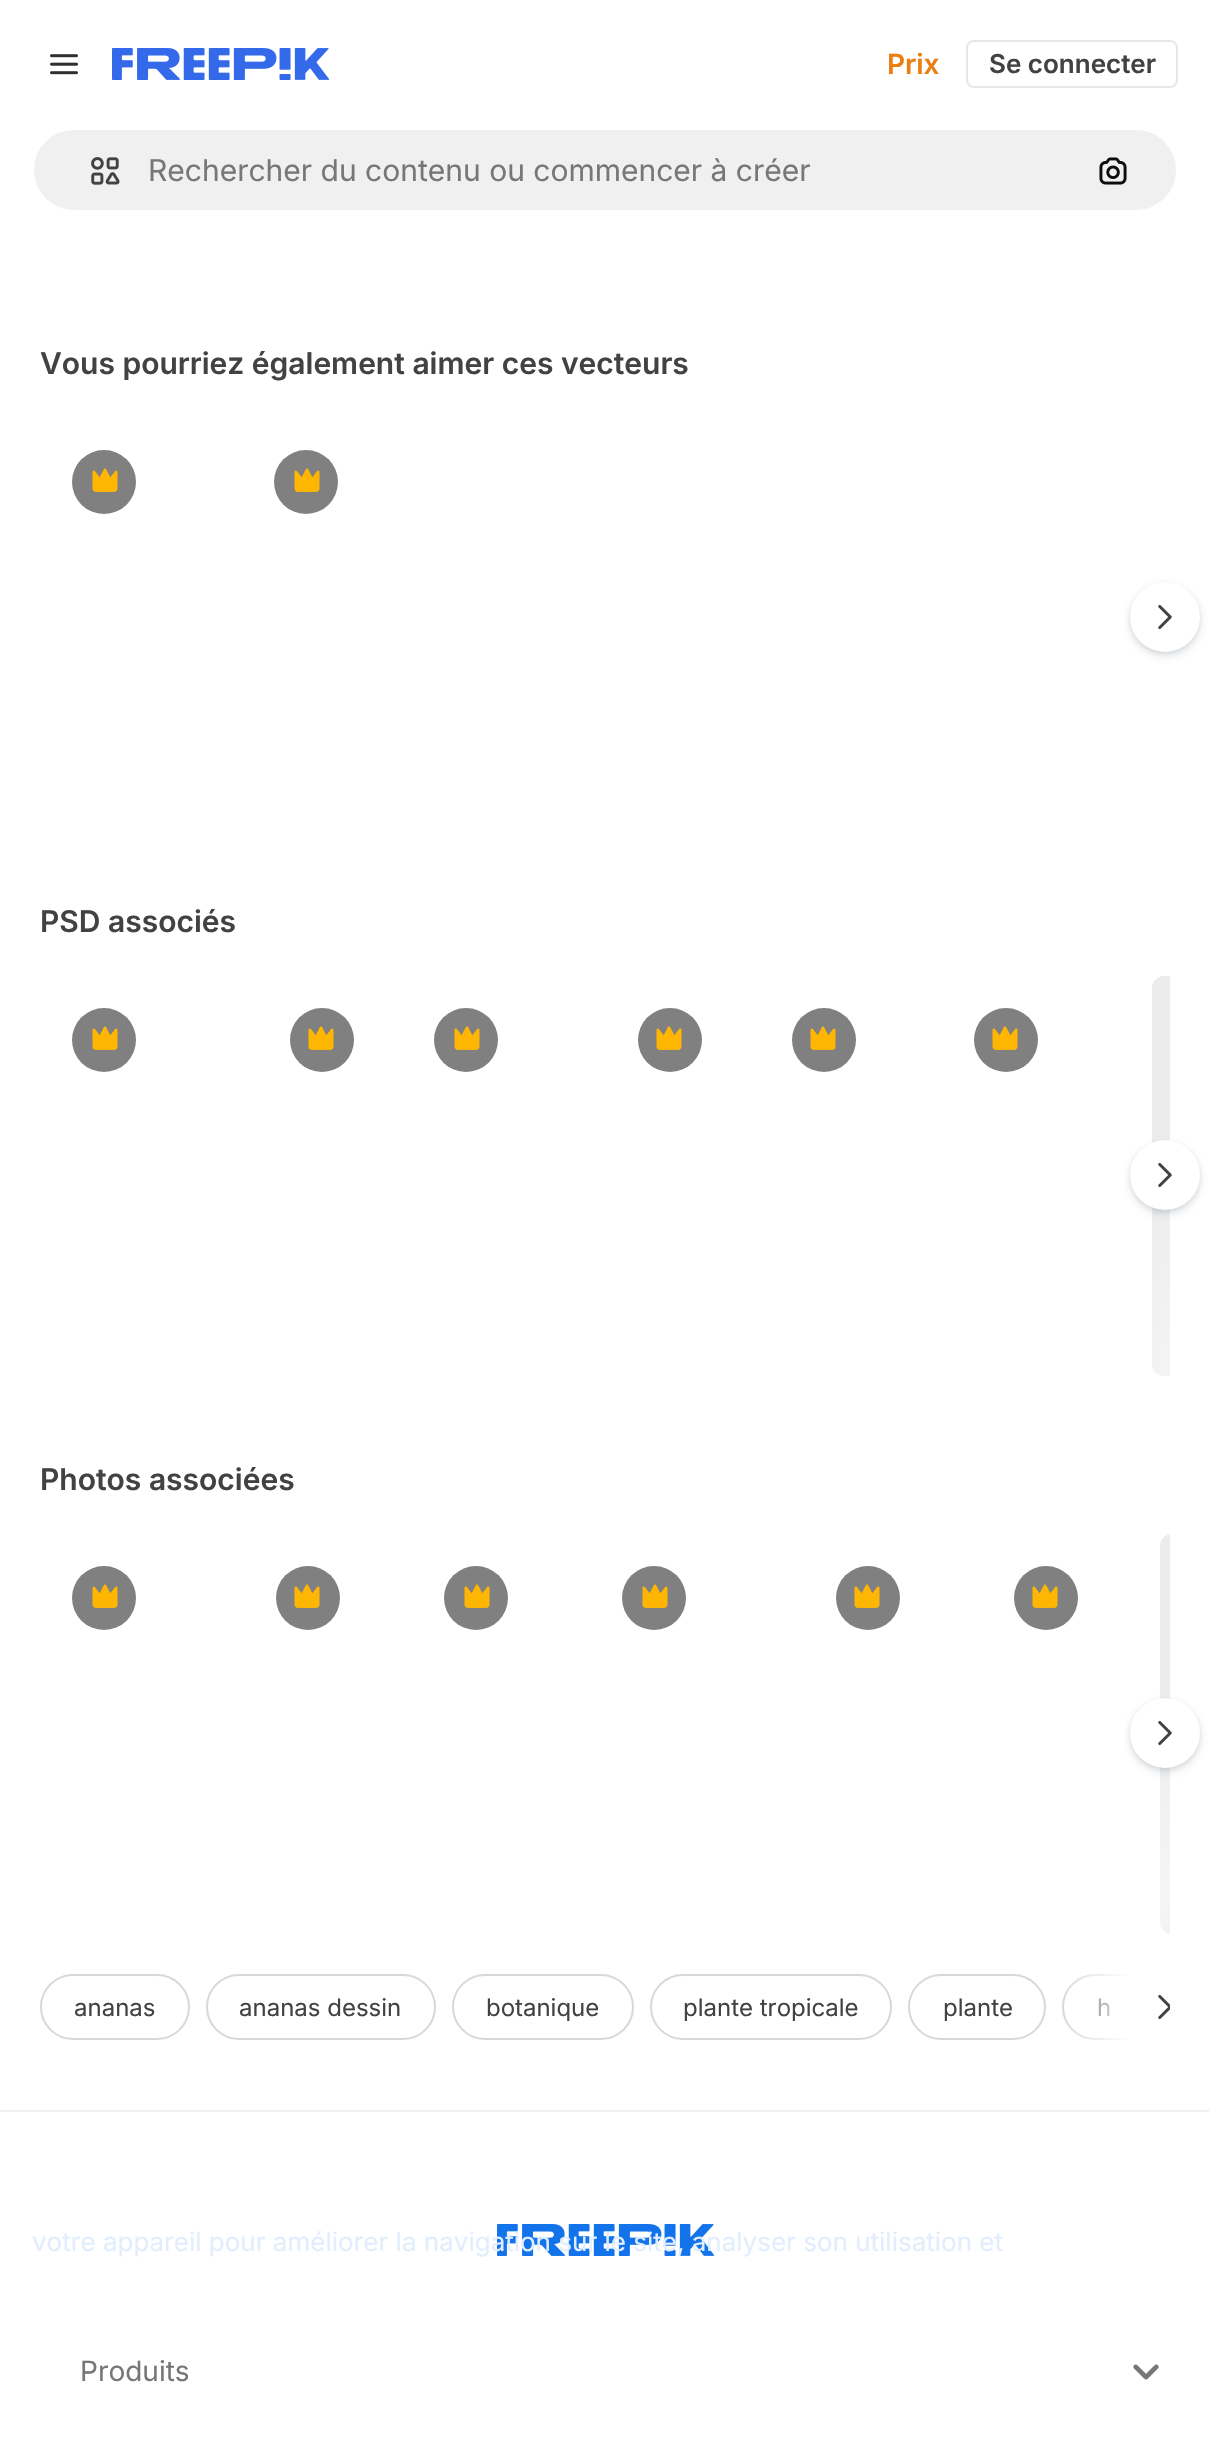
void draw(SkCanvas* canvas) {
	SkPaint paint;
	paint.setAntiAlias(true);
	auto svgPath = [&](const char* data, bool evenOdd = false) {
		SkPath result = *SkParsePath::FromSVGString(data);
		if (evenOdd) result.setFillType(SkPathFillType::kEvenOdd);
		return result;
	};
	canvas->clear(0xffffffff);
	canvas->drawImageRect(SkImages::DeferredFromEncodedData(SkData::MakeFromFileName("img1.png")), SkRect::MakeXYWH(50, 54, 28, 21), SkSamplingOptions());
	canvas->drawImageRect(SkImages::DeferredFromEncodedData(SkData::MakeFromFileName("img2.png")), SkRect::MakeXYWH(112, 48, 218, 32), SkSamplingOptions());
	SkFont f1(fontMgr->matchFamilyStyle("Inter", SkFontStyle(600, SkFontStyle::kNormal_Width, SkFontStyle::kUpright_Slant)), 28);
	f1.setSubpixel(true);
	paint.setColor(0xffea7e11);
	canvas->drawString("Prix", 887, 74, f1, paint);
	paint.setStroke(true);
	paint.setStrokeWidth(2);
	paint.setColor(0xffe7e7e7);
	canvas->drawRoundRect(SkRect::MakeXYWH(967, 41, 210, 46), 7, 7, paint);
	SkFont f2(fontMgr->matchFamilyStyle("Inter", SkFontStyle(600, SkFontStyle::kNormal_Width, SkFontStyle::kUpright_Slant)), 26);
	f2.setSubpixel(true);
	paint.setStroke(false);
	paint.setColor(0xff424242);
	canvas->drawString("Se connecter", 989, 73, f2, paint);
	paint.setColor(0xfff0f0f0);
	canvas->drawRoundRect(SkRect::MakeXYWH(33, 129, 1144, 82), 41, 41, paint);
	paint.setStroke(true);
	paint.setColor(0xffffffff);
	canvas->drawRoundRect(SkRect::MakeXYWH(33, 129, 1144, 82), 41, 41, paint);
	canvas->drawImageRect(SkImages::DeferredFromEncodedData(SkData::MakeFromFileName("img3.png")), SkRect::MakeXYWH(91, 157, 29, 28), SkSamplingOptions());
	SkFont f3(fontMgr->matchFamilyStyle("Inter", SkFontStyle::Normal()), 30);
	f3.setSubpixel(true);
	paint.setStroke(false);
	paint.setColor(0xff777777);
	canvas->drawString("Rechercher du contenu ou commencer à créer", 148, 181, f3, paint);
	canvas->drawImageRect(SkImages::DeferredFromEncodedData(SkData::MakeFromFileName("img4.png")), SkRect::MakeXYWH(1099, 157, 28, 28), SkSamplingOptions());
	SkFont f4(fontMgr->matchFamilyStyle("Inter", SkFontStyle(600, SkFontStyle::kNormal_Width, SkFontStyle::kUpright_Slant)), 30);
	f4.setSubpixel(true);
	paint.setColor(0xff424242);
	canvas->drawString("Vous pourriez également aimer ces vecteurs", 40, 374, f4, paint);
	paint.setColor(0xff808080);
	canvas->drawCircle(104, 482, 32, paint);
	canvas->drawImageRect(SkImages::DeferredFromEncodedData(SkData::MakeFromFileName("img5.png")), SkRect::MakeXYWH(92, 468, 26, 24), SkSamplingOptions());
	canvas->drawCircle(306, 482, 32, paint);
	canvas->drawImageRect(SkImages::DeferredFromEncodedData(SkData::MakeFromFileName("img5.png")), SkRect::MakeXYWH(294, 468, 26, 24), SkSamplingOptions());
	paint.setColor(0x26374957);
	paint.setMaskFilter(SkMaskFilter::MakeBlur(kNormal_SkBlurStyle, 5));
	canvas->drawRoundRect(SkRect::MakeXYWH(1130, 586, 70, 70), 35, 35, paint);
	paint.setMaskFilter(nullptr);
	paint.setColor(0x1a374957);
	paint.setMaskFilter(SkMaskFilter::MakeBlur(kNormal_SkBlurStyle, 2));
	canvas->drawRoundRect(SkRect::MakeXYWH(1130, 584, 70, 70), 35, 35, paint);
	paint.setMaskFilter(nullptr);
	paint.setColor(0xffffffff);
	canvas->drawCircle(1165, 617, 35, paint);
	canvas->drawImageRect(SkImages::DeferredFromEncodedData(SkData::MakeFromFileName("img6.png")), SkRect::MakeXYWH(1158, 604, 14, 26), SkSamplingOptions());
	paint.setColor(0xff424242);
	canvas->drawString("PSD associés", 40, 932, f4, paint);
	paint.setColor(0xff808080);
	canvas->drawCircle(104, 1040, 32, paint);
	canvas->drawImageRect(SkImages::DeferredFromEncodedData(SkData::MakeFromFileName("img5.png")), SkRect::MakeXYWH(92, 1026, 26, 24), SkSamplingOptions());
	canvas->drawCircle(322, 1040, 32, paint);
	canvas->drawImageRect(SkImages::DeferredFromEncodedData(SkData::MakeFromFileName("img5.png")), SkRect::MakeXYWH(308, 1026, 26, 24), SkSamplingOptions());
	canvas->drawCircle(466, 1040, 32, paint);
	canvas->drawImageRect(SkImages::DeferredFromEncodedData(SkData::MakeFromFileName("img5.png")), SkRect::MakeXYWH(454, 1026, 26, 24), SkSamplingOptions());
	canvas->drawCircle(670, 1040, 32, paint);
	canvas->drawImageRect(SkImages::DeferredFromEncodedData(SkData::MakeFromFileName("img5.png")), SkRect::MakeXYWH(656, 1026, 26, 24), SkSamplingOptions());
	canvas->drawCircle(824, 1040, 32, paint);
	canvas->drawImageRect(SkImages::DeferredFromEncodedData(SkData::MakeFromFileName("img5.png")), SkRect::MakeXYWH(810, 1026, 26, 24), SkSamplingOptions());
	canvas->drawCircle(1006, 1040, 32, paint);
	canvas->drawImageRect(SkImages::DeferredFromEncodedData(SkData::MakeFromFileName("img5.png")), SkRect::MakeXYWH(992, 1026, 26, 24), SkSamplingOptions());
	{
		const SkColor colors[] = {0xffececec, 0xfff5f5f5, 0xffececec};
		const float stops[] = {0.08, 0.18, 0.33};
		const SkPoint ends[] = {{1135, 1024}, {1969, 1328}};
		paint.setShader(SkGradientShader::MakeLinear(ends, colors, stops, 3, SkTileMode::kClamp));
		paint.setAlpha(255);
	}
	canvas->drawPath(svgPath("M1164 976H1170V1376H1164C1157.5 1376 1152 1370.5 1152 1364V988C1152 981.5 1157.5 976 1164 976Z"), paint);
	paint.setShader(nullptr);
	paint.setColor(0x26374957);
	paint.setMaskFilter(SkMaskFilter::MakeBlur(kNormal_SkBlurStyle, 5));
	canvas->drawRoundRect(SkRect::MakeXYWH(1130, 1144, 70, 70), 35, 35, paint);
	paint.setMaskFilter(nullptr);
	paint.setColor(0x1a374957);
	paint.setMaskFilter(SkMaskFilter::MakeBlur(kNormal_SkBlurStyle, 2));
	canvas->drawRoundRect(SkRect::MakeXYWH(1130, 1142, 70, 70), 35, 35, paint);
	paint.setMaskFilter(nullptr);
	paint.setColor(0xffffffff);
	canvas->drawCircle(1165, 1175, 35, paint);
	canvas->drawImageRect(SkImages::DeferredFromEncodedData(SkData::MakeFromFileName("img6.png")), SkRect::MakeXYWH(1158, 1162, 14, 26), SkSamplingOptions());
	paint.setColor(0xff424242);
	canvas->drawString("Photos associées", 40, 1490, f4, paint);
	paint.setColor(0xff808080);
	canvas->drawCircle(104, 1598, 32, paint);
	canvas->drawImageRect(SkImages::DeferredFromEncodedData(SkData::MakeFromFileName("img5.png")), SkRect::MakeXYWH(92, 1584, 26, 24), SkSamplingOptions());
	canvas->drawCircle(308, 1598, 32, paint);
	canvas->drawImageRect(SkImages::DeferredFromEncodedData(SkData::MakeFromFileName("img5.png")), SkRect::MakeXYWH(294, 1584, 26, 24), SkSamplingOptions());
	canvas->drawCircle(476, 1598, 32, paint);
	canvas->drawImageRect(SkImages::DeferredFromEncodedData(SkData::MakeFromFileName("img5.png")), SkRect::MakeXYWH(464, 1584, 26, 24), SkSamplingOptions());
	canvas->drawCircle(654, 1598, 32, paint);
	canvas->drawImageRect(SkImages::DeferredFromEncodedData(SkData::MakeFromFileName("img5.png")), SkRect::MakeXYWH(642, 1584, 26, 24), SkSamplingOptions());
	canvas->drawCircle(868, 1598, 32, paint);
	canvas->drawImageRect(SkImages::DeferredFromEncodedData(SkData::MakeFromFileName("img5.png")), SkRect::MakeXYWH(854, 1584, 26, 24), SkSamplingOptions());
	canvas->drawCircle(1046, 1598, 32, paint);
	canvas->drawImageRect(SkImages::DeferredFromEncodedData(SkData::MakeFromFileName("img5.png")), SkRect::MakeXYWH(1032, 1584, 26, 24), SkSamplingOptions());
	{
		const SkColor colors[] = {0xffececec, 0xfff5f5f5, 0xffececec};
		const float stops[] = {0.08, 0.18, 0.33};
		const SkPoint ends[] = {{1131, 1614}, {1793, 1854}};
		paint.setShader(SkGradientShader::MakeLinear(ends, colors, stops, 3, SkTileMode::kClamp));
		paint.setAlpha(255);
	}
	canvas->drawPath(svgPath("M1172 1534H1170V1934H1172C1165.5 1934 1160 1928.5 1160 1922V1546C1160 1539.5 1165.5 1534 1172 1534Z"), paint);
	paint.setShader(nullptr);
	paint.setColor(0x26374957);
	paint.setMaskFilter(SkMaskFilter::MakeBlur(kNormal_SkBlurStyle, 5));
	canvas->drawRoundRect(SkRect::MakeXYWH(1130, 1702, 70, 70), 35, 35, paint);
	paint.setMaskFilter(nullptr);
	paint.setColor(0x1a374957);
	paint.setMaskFilter(SkMaskFilter::MakeBlur(kNormal_SkBlurStyle, 2));
	canvas->drawRoundRect(SkRect::MakeXYWH(1130, 1700, 70, 70), 35, 35, paint);
	paint.setMaskFilter(nullptr);
	paint.setColor(0xffffffff);
	canvas->drawCircle(1165, 1733, 35, paint);
	canvas->drawImageRect(SkImages::DeferredFromEncodedData(SkData::MakeFromFileName("img6.png")), SkRect::MakeXYWH(1158, 1720, 14, 26), SkSamplingOptions());
	paint.setStroke(true);
	paint.setColor(0xffd8d8d8);
	canvas->drawRoundRect(SkRect::MakeXYWH(41, 1975, 148, 64), 32, 32, paint);
	SkFont f5(fontMgr->matchFamilyStyle("Inter", SkFontStyle::Normal()), 24);
	f5.setSubpixel(true);
	paint.setStroke(false);
	paint.setColor(0xff424242);
	canvas->drawString("ananas", 74, 2016, f5, paint);
	paint.setStroke(true);
	paint.setColor(0xffd8d8d8);
	canvas->drawRoundRect(SkRect::MakeXYWH(207, 1975, 228, 64), 32, 32, paint);
	paint.setStroke(false);
	paint.setColor(0xff424242);
	canvas->drawString("ananas dessin", 239, 2016, f5, paint);
	paint.setStroke(true);
	paint.setColor(0xffd8d8d8);
	canvas->drawRoundRect(SkRect::MakeXYWH(453, 1975, 180, 64), 32, 32, paint);
	paint.setStroke(false);
	paint.setColor(0xff424242);
	canvas->drawString("botanique", 486, 2016, f5, paint);
	paint.setStroke(true);
	paint.setColor(0xffd8d8d8);
	canvas->drawRoundRect(SkRect::MakeXYWH(651, 1975, 240, 64), 32, 32, paint);
	paint.setStroke(false);
	paint.setColor(0xff424242);
	canvas->drawString("plante tropicale", 683, 2016, f5, paint);
	paint.setStroke(true);
	paint.setColor(0xffd8d8d8);
	canvas->drawRoundRect(SkRect::MakeXYWH(909, 1975, 136, 64), 32, 32, paint);
	paint.setStroke(false);
	paint.setColor(0xff424242);
	canvas->drawString("plante", 943, 2016, f5, paint);
	canvas->save();
	canvas->clipRect(SkRect::MakeXYWH(40, 1974, 1130, 66));
	paint.setStroke(true);
	paint.setColor(0xffd8d8d8);
	canvas->drawRoundRect(SkRect::MakeXYWH(1063, 1975, 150, 64), 32, 32, paint);
	canvas->restore();
	paint.setStroke(false);
	paint.setColor(0xff424242);
	canvas->drawString("h", 1097, 2016, f5, paint);
	paint.setColor(0xffffffff);
	canvas->drawRect(SkRect::MakeXYWH(1130, 1974, 40, 66), paint);
	{
		const SkColor colors[] = {0xffffffff, 0x00ffffff};
		const float stops[] = {0, 1};
		const SkPoint ends[] = {{1130, 2007}, {1060, 2007}};
		paint.setShader(SkGradientShader::MakeLinear(ends, colors, stops, 2, SkTileMode::kClamp));
		paint.setAlpha(255);
	}
	canvas->drawRect(SkRect::MakeXYWH(1065, 1974, 65, 66), paint);
	canvas->drawImageRect(SkImages::DeferredFromEncodedData(SkData::MakeFromFileName("img7.png")), SkRect::MakeXYWH(1158, 1994, 12, 26), SkSamplingOptions());
	paint.setShader(nullptr);
	paint.setColor(0xfff0f0f0);
	canvas->drawRect(SkRect::MakeXYWH(0, 2110, 1209, 2), paint);
	canvas->drawImageRect(SkImages::DeferredFromEncodedData(SkData::MakeFromFileName("img8.png")), SkRect::MakeXYWH(497, 2224, 218, 32), SkSamplingOptions());
	SkFont f6(fontMgr->matchFamilyStyle("Inter", SkFontStyle::Normal()), 28);
	f6.setSubpixel(true);
	paint.setColor(0xff777777);
	canvas->drawString("Produits", 80, 2381, f6, paint);
	canvas->drawImageRect(SkImages::DeferredFromEncodedData(SkData::MakeFromFileName("img9.png")), SkRect::MakeXYWH(1133, 2364, 26, 16), SkSamplingOptions());
	SkFont f7(fontMgr->matchFamilyStyle("Inter", SkFontStyle::Normal()), 26);
	f7.setSubpixel(true);
	paint.setColor(0xffe2eefd);
	canvas->drawString("votre appareil pour améliorer la navigation sur le site, analyser son utilisation et", 32, 2251, f7, paint);
}
